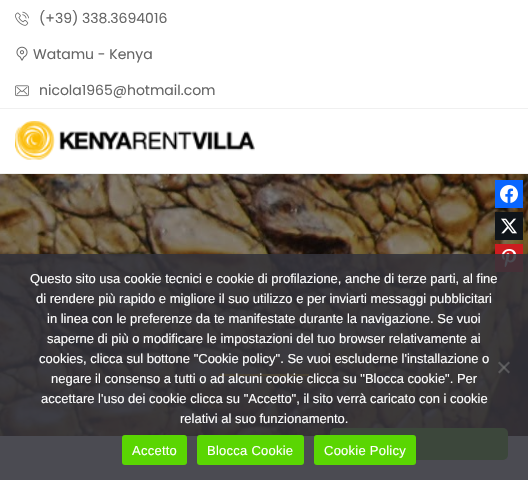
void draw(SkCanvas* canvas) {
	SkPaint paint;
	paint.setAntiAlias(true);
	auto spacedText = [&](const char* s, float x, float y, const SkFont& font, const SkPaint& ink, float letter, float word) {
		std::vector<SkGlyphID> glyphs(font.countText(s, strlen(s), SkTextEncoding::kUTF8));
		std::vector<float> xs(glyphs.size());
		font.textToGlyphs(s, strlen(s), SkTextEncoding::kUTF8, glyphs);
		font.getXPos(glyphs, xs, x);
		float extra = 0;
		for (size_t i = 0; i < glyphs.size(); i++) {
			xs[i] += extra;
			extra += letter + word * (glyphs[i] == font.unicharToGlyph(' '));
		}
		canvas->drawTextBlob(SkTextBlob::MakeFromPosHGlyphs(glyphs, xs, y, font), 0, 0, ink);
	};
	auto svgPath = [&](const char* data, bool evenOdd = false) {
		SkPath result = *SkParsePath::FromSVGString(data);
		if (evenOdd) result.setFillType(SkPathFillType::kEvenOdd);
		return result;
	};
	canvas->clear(0xffffffff);
	paint.setColor(0xfff0f0f0);
	canvas->drawRect(SkRect::MakeXYWH(0, 108, 528, 1), paint);
	canvas->drawImageRect(SkImages::DeferredFromEncodedData(SkData::MakeFromFileName("img1.png")), SkRect::MakeXYWH(15, 11, 14, 15), SkSamplingOptions());
	SkFont f1(fontMgr->matchFamilyStyle("Poppins", SkFontStyle::Normal()), 14);
	f1.setSubpixel(true);
	paint.setColor(0xff666666);
	canvas->drawString("(+39) 338.3694016", 39, 23, f1, paint);
	canvas->drawImageRect(SkImages::DeferredFromEncodedData(SkData::MakeFromFileName("img2.png")), SkRect::MakeXYWH(16, 46, 12, 15), SkSamplingOptions());
	canvas->drawString("Watamu - Kenya", 33, 59, f1, paint);
	canvas->drawImageRect(SkImages::DeferredFromEncodedData(SkData::MakeFromFileName("img3.png")), SkRect::MakeXYWH(15, 85, 14, 12), SkSamplingOptions());
	canvas->drawString("nicola1965@hotmail.com", 39, 95, f1, paint);
	canvas->drawImageRect(SkImages::DeferredFromEncodedData(SkData::MakeFromFileName("img4.png")), SkRect::MakeXYWH(15, 121, 240, 39), SkSamplingOptions());
	paint.setColor(0xfff0f0f0);
	canvas->drawRect(SkRect::MakeXYWH(0, 173, 528, 1), paint);
	canvas->drawImageRect(SkImages::DeferredFromEncodedData(SkData::MakeFromFileName("img5.png")), SkRect::MakeXYWH(0, 174, 528, 262), SkSamplingOptions());
	paint.setColor(0xfff9b200);
	canvas->drawRect(SkRect::MakeXYWH(219, 374, 90, 2), paint);
	paint.setColor(0xff0866ff);
	canvas->drawRect(SkRect::MakeXYWH(495, 180, 28, 28), paint);
	canvas->drawImageRect(SkImages::DeferredFromEncodedData(SkData::MakeFromFileName("img6.png")), SkRect::MakeXYWH(500, 185, 18, 18), SkSamplingOptions());
	paint.setColor(0xff0f1419);
	canvas->drawRect(SkRect::MakeXYWH(495, 212, 28, 28), paint);
	canvas->drawImageRect(SkImages::DeferredFromEncodedData(SkData::MakeFromFileName("img7.png")), SkRect::MakeXYWH(501, 218, 16, 16), SkSamplingOptions());
	paint.setColor(0xffcd1c1f);
	canvas->drawRect(SkRect::MakeXYWH(495, 244, 28, 28), paint);
	canvas->drawImageRect(SkImages::DeferredFromEncodedData(SkData::MakeFromFileName("img8.png")), SkRect::MakeXYWH(501, 249, 16, 18), SkSamplingOptions());
	paint.setColor(0xff81d742);
	canvas->drawRoundRect(SkRect::MakeXYWH(330, 428, 178, 32), 5, 5, paint);
	paint.setColor(0xe032323a);
	canvas->drawRect(SkRect::MakeXYWH(0, 254, 528, 226), paint);
	SkFont f2(fontMgr->matchFamilyStyle("Liberation Sans", SkFontStyle::Normal()), 13);
	f2.setSubpixel(true);
	paint.setColor(0xffffffff);
	canvas->drawString("Questo sito usa cookie tecnici e cookie di profilazione, anche di terze parti, al fine", 30, 283, f2, paint);
	canvas->drawString("di rendere più rapido e migliore il suo utilizzo e per inviarti messaggi pubblicitari", 36, 303, f2, paint);
	canvas->drawString("in linea con le preferenze da te manifestate durante la navigazione. Se vuoi", 47, 323, f2, paint);
	canvas->drawString("saperne di più o modificare le impostazioni del tuo browser relativamente ai", 47, 343, f2, paint);
	canvas->drawString("cookies, clicca sul bottone \"Cookie policy\". Se vuoi escluderne l'installazione o", 39, 363, f2, paint);
	canvas->drawString("negare il consenso a tutti o ad alcuni cookie clicca su \"Blocca cookie\". Per", 51, 383, f2, paint);
	canvas->drawString("accettare l'uso dei cookie clicca su \"Accetto\", il sito verrà caricato con i cookie", 41, 403, f2, paint);
	canvas->drawString("relativi al suo funzionamento.", 180, 423, f2, paint);
	paint.setColor(0x80808080);
	canvas->drawPath(svgPath("M508.5 361.5L510 363L499.5 373.5L498 372Z"), paint);
	canvas->drawPath(svgPath("M498 363L499.5 361.5L510 372L508.5 373.5Z"), paint);
	paint.setColor(0xff5ad602);
	canvas->drawRoundRect(SkRect::MakeXYWH(122, 435, 65, 30), 3, 3, paint);
	paint.setColor(0xffffffff);
	spacedText("Accetto", 132, 455, f2, paint, 0.25, 0);
	paint.setColor(0xff5ad602);
	canvas->drawRoundRect(SkRect::MakeXYWH(197, 435, 107, 30), 3, 3, paint);
	paint.setColor(0xffffffff);
	spacedText("Blocca Cookie", 207, 455, f2, paint, 0.25, 0);
	paint.setColor(0xff5ad602);
	canvas->drawRoundRect(SkRect::MakeXYWH(314, 435, 102, 30), 3, 3, paint);
	paint.setColor(0xffffffff);
	spacedText("Cookie Policy", 324, 455, f2, paint, 0.25, 0);
}
